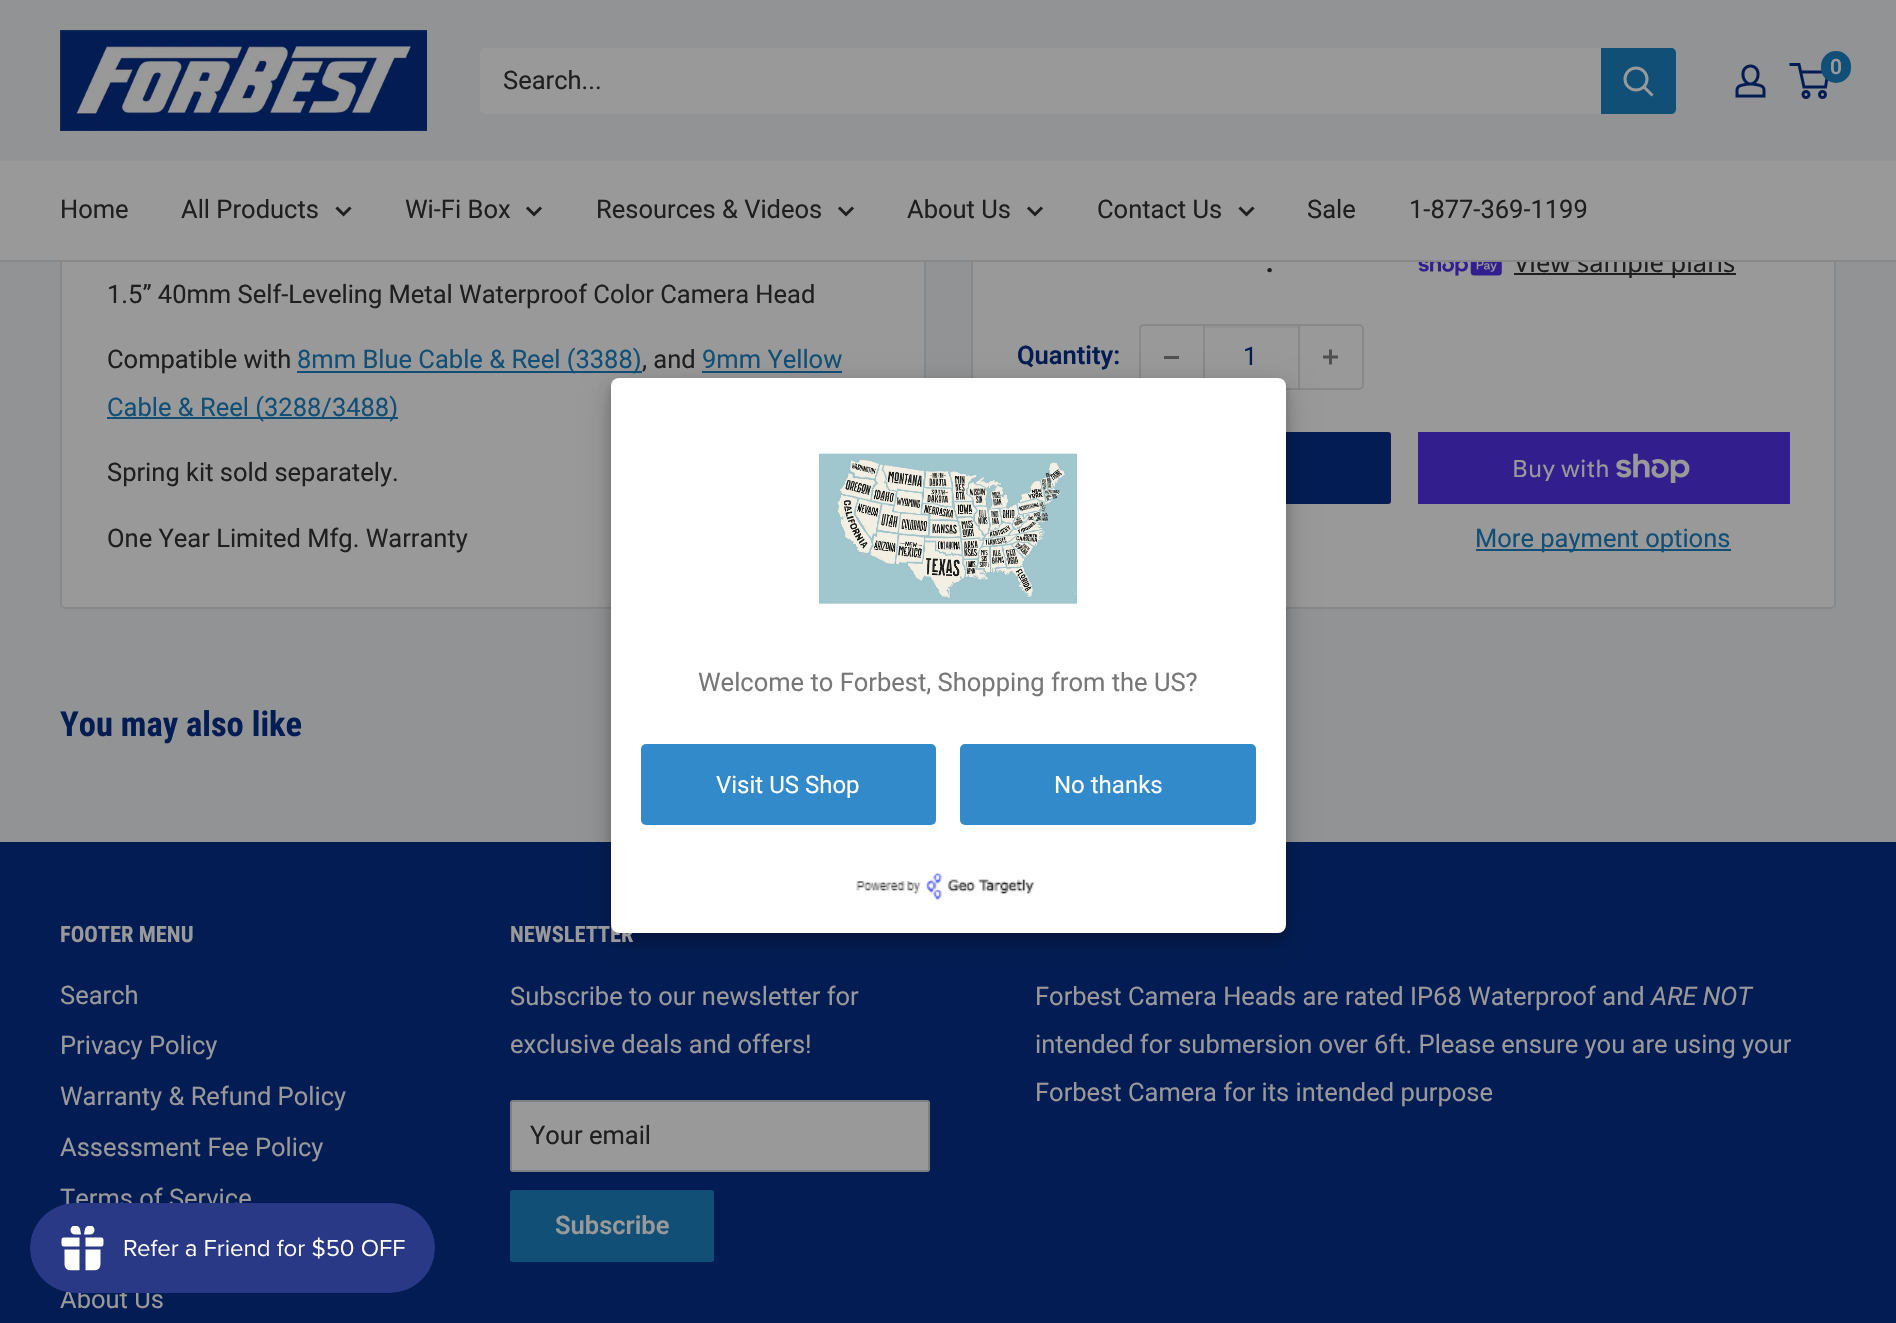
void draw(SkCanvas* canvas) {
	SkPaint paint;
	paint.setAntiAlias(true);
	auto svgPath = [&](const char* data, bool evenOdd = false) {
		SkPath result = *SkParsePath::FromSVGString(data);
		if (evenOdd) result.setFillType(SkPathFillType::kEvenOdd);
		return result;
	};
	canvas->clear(0xff929394);
	paint.setColor(0xff999999);
	canvas->drawRoundRect(SkRect::MakeXYWH(61, 141, 864, 467), 4, 4, paint);
	paint.setStroke(true);
	paint.setStrokeWidth(2);
	paint.setColor(0xff878889);
	canvas->drawRoundRect(SkRect::MakeXYWH(61, 141, 864, 467), 4, 4, paint);
	paint.setStroke(false);
	paint.setColor(0xff999999);
	canvas->drawRoundRect(SkRect::MakeXYWH(972, -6, 863, 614), 4, 4, paint);
	paint.setStroke(true);
	paint.setColor(0xff878889);
	canvas->drawRoundRect(SkRect::MakeXYWH(972, -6, 863, 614), 4, 4, paint);
	paint.setStroke(false);
	paint.setColor(0xff929394);
	canvas->drawRect(SkRect::MakeXYWH(60, 0, 1776, 161), paint);
	canvas->drawImageRect(SkImages::DeferredFromEncodedData(SkData::MakeFromFileName("img1.png")), SkRect::MakeXYWH(60, 30, 367, 101), SkSamplingOptions());
	canvas->drawImageRect(SkImages::DeferredFromEncodedData(SkData::MakeFromFileName("img2.png")), SkRect::MakeXYWH(1735, 64, 31, 34), SkSamplingOptions());
	paint.setStroke(true);
	paint.setStrokeWidth(3);
	paint.setColor(0xff031d54);
	canvas->drawCircle(1806, 94.5, 3, paint);
	canvas->drawCircle(1822.5, 94.5, 3, paint);
	canvas->drawPath(svgPath("M1800.5 72H1828L1825.5 87H1804L1799 64.5H1789.5"), paint);
	paint.setStroke(false);
	paint.setColor(0xff114f77);
	canvas->drawRoundRect(SkRect::MakeXYWH(1821, 51, 30, 32), 15, 15, paint);
	SkFont f1(fontMgr->matchFamilyStyle("Roboto", SkFontStyle(600, SkFontStyle::kNormal_Width, SkFontStyle::kUpright_Slant)), 21);
	f1.setSubpixel(true);
	paint.setColor(0xff999999);
	canvas->drawString("0", 1830, 74, f1, paint);
	canvas->drawRoundRect(SkRect::MakeXYWH(480, 48, 1196, 66), 5, 5, paint);
	SkFont f2(fontMgr->matchFamilyStyle("Roboto", SkFontStyle::Normal()), 25.5);
	f2.setSubpixel(true);
	paint.setColor(0xff1f1f1f);
	canvas->drawString("Search...", 503, 89, f2, paint);
	paint.setColor(0xff114f77);
	canvas->drawPath(svgPath("M1601 48H1671C1674 48 1676 50 1676 53V109C1676 112 1674 114 1671 114H1601Z"), paint);
	paint.setStroke(true);
	paint.setStrokeCap(SkPaint::kSquare_Cap);
	paint.setColor(0xff999999);
	canvas->drawPath(svgPath("M1651.5 94.5L1644 87"), paint);
	paint.setStrokeCap(SkPaint::kButt_Cap);
	canvas->drawCircle(1636, 79, 11, paint);
	paint.setStroke(false);
	paint.setColor(0xff1f1f1f);
	canvas->drawRect(SkRect::MakeXYWH(1514, 273, 222, 2), paint);
	SkFont f3(fontMgr->matchFamilyStyle("Noto Sans", SkFontStyle::Normal()), 25.5);
	f3.setSubpixel(true);
	canvas->drawString("View sample plans", 1514, 272, f3, paint);
	paint.setColor(0xff999999);
	canvas->drawRect(SkRect::MakeXYWH(0, 161, 1896, 99), paint);
	paint.setColor(0xff878889);
	canvas->drawRect(SkRect::MakeXYWH(0, 260, 1896, 2), paint);
	paint.setColor(0xff1f1f1f);
	canvas->drawString("Home", 60, 218, f2, paint);
	canvas->drawString("All Products", 181, 218, f2, paint);
	paint.setStroke(true);
	paint.setStrokeCap(SkPaint::kSquare_Cap);
	canvas->drawPath(svgPath("M349.5 208.5L343.5 214.5L337.5 208.5"), paint);
	paint.setStroke(false);
	canvas->drawString("Wi-Fi Box", 405, 218, f2, paint);
	paint.setStroke(true);
	canvas->drawPath(svgPath("M540 208.5L534 214.5L528 208.5"), paint);
	paint.setStroke(false);
	canvas->drawString("Resources & Videos", 596, 218, f2, paint);
	paint.setStroke(true);
	canvas->drawPath(svgPath("M852 208.5L846 214.5L840 208.5"), paint);
	paint.setStroke(false);
	canvas->drawString("About Us", 907, 218, f2, paint);
	paint.setStroke(true);
	canvas->drawPath(svgPath("M1041 208.5L1035 214.5L1029 208.5"), paint);
	paint.setStroke(false);
	canvas->drawString("Contact Us", 1097, 218, f2, paint);
	paint.setStroke(true);
	canvas->drawPath(svgPath("M1252.5 208.5L1246.5 214.5L1240.5 208.5"), paint);
	paint.setStroke(false);
	canvas->drawString("Sale", 1307, 218, f2, paint);
	canvas->drawString("1-877-369-1199", 1409, 218, f2, paint);
	canvas->drawString("1.5” 40mm Self-Leveling Metal Waterproof Color Camera Head", 107, 303, f2, paint);
	canvas->drawString("Compatible with", 107, 368, f2, paint);
	paint.setColor(0xff114f77);
	canvas->drawRect(SkRect::MakeXYWH(297, 371, 345, 2), paint);
	canvas->drawString("8mm Blue Cable & Reel (3388)", 297, 368, f2, paint);
	paint.setColor(0xff1f1f1f);
	canvas->drawString(", and", 642, 368, f2, paint);
	paint.setColor(0xff114f77);
	canvas->drawString("9mm Yellow", 702, 368, f2, paint);
	canvas->drawRect(SkRect::MakeXYWH(702, 371, 140, 2), paint);
	canvas->drawRect(SkRect::MakeXYWH(107, 417, 291, 2), paint);
	canvas->drawString("Cable & Reel (3288/3488)", 107, 416, f2, paint);
	paint.setColor(0xff1f1f1f);
	canvas->drawString("Spring kit sold separately.", 107, 481, f2, paint);
	canvas->drawString("One Year Limited Mfg. Warranty", 107, 547, f2, paint);
	SkFont f4(fontMgr->matchFamilyStyle("Noto Sans", SkFontStyle::Bold()), 25.5);
	f4.setSubpixel(true);
	canvas->drawString(".", 1266, 272, f4, paint);
	canvas->drawImageRect(SkImages::DeferredFromEncodedData(SkData::MakeFromFileName("img3.png")), SkRect::MakeXYWH(1418, 262, 84, 14), SkSamplingOptions());
	SkFont f5(fontMgr->matchFamilyStyle("Roboto", SkFontStyle(600, SkFontStyle::kNormal_Width, SkFontStyle::kUpright_Slant)), 25.5);
	f5.setSubpixel(true);
	paint.setColor(0xff031d54);
	canvas->drawString("Quantity:", 1017, 364, f5, paint);
	paint.setStroke(true);
	paint.setStrokeWidth(2);
	paint.setStrokeCap(SkPaint::kButt_Cap);
	paint.setColor(0xff878889);
	canvas->drawRoundRect(SkRect::MakeXYWH(1140, 325, 223, 64), 4, 4, paint);
	paint.setStroke(false);
	paint.setColor(0xff505050);
	canvas->drawRect(SkRect::MakeXYWH(1164, 356, 15, 3), paint);
	paint.setColor(0xff929292);
	canvas->drawRect(SkRect::MakeXYWH(1205, 326, 93, 2), paint);
	paint.setColor(0xff878889);
	canvas->drawRect(SkRect::MakeXYWH(1298, 326, 2, 63), paint);
	canvas->drawRect(SkRect::MakeXYWH(1203, 326, 2, 52), paint);
	paint.setColor(0xff031d54);
	canvas->drawString("1", 1243, 365, f2, paint);
	canvas->drawImageRect(SkImages::DeferredFromEncodedData(SkData::MakeFromFileName("img4.png")), SkRect::MakeXYWH(1323, 349, 15, 16), SkSamplingOptions());
	canvas->drawRoundRect(SkRect::MakeXYWH(1017, 432, 374, 72), 3, 3, paint);
	paint.setColor(0xff321f8d);
	canvas->drawRect(SkRect::MakeXYWH(1418, 432, 372, 72), paint);
	SkFont f6(fontMgr->matchFamilyStyle("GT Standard", SkFontStyle::Normal()), 24);
	f6.setSubpixel(true);
	paint.setColor(0xff999999);
	canvas->drawString("Buy with", 1512, 477, f6, paint);
	canvas->drawImageRect(SkImages::DeferredFromEncodedData(SkData::MakeFromFileName("img5.png")), SkRect::MakeXYWH(1616, 453, 74, 30), SkSamplingOptions());
	paint.setColor(0xff114f77);
	canvas->drawRect(SkRect::MakeXYWH(1476, 549, 255, 2), paint);
	canvas->drawString("More payment options", 1475, 547, f2, paint);
	SkFont f7(fontMgr->matchFamilyStyle("Roboto Condensed", SkFontStyle::Bold()), 34.5);
	f7.setSubpixel(true);
	paint.setColor(0xff031d54);
	canvas->drawString("You may also like", 60, 736, f7, paint);
	canvas->drawRect(SkRect::MakeXYWH(0, 842, 1896, 481), paint);
	paint.setColor(0x30000000);
	paint.setMaskFilter(SkMaskFilter::MakeBlur(kNormal_SkBlurStyle, 15));
	canvas->drawRoundRect(SkRect::MakeXYWH(611, 387, 675, 555), 8, 8, paint);
	paint.setMaskFilter(nullptr);
	paint.setColor(0x33000000);
	paint.setMaskFilter(SkMaskFilter::MakeBlur(kNormal_SkBlurStyle, 6));
	canvas->drawRoundRect(SkRect::MakeXYWH(611, 384, 675, 555), 8, 8, paint);
	paint.setMaskFilter(nullptr);
	SkFont f8(fontMgr->matchFamilyStyle("Roboto Condensed", SkFontStyle::Bold()), 22.5);
	f8.setSubpixel(true);
	paint.setColor(0xff999999);
	canvas->drawString("NEWSLETTER", 510, 942, f8, paint);
	paint.setColor(0xffffffff);
	canvas->drawRoundRect(SkRect::MakeXYWH(611, 378, 675, 555), 8, 8, paint);
	canvas->drawImageRect(SkImages::DeferredFromEncodedData(SkData::MakeFromFileName("img6.png")), SkRect::MakeXYWH(819, 453, 258, 151), SkSamplingOptions());
	paint.setColor(0xff777777);
	canvas->drawString("Welcome to Forbest, Shopping from the US?", 698, 691, f2, paint);
	paint.setColor(0xff328aca);
	canvas->drawRoundRect(SkRect::MakeXYWH(641, 744, 295, 81), 5, 5, paint);
	SkFont f9(fontMgr->matchFamilyStyle("Roboto", SkFontStyle::Normal()), 24);
	f9.setSubpixel(true);
	paint.setColor(0xffffffff);
	canvas->drawString("Visit US Shop", 716, 793, f9, paint);
	paint.setColor(0xff328aca);
	canvas->drawRoundRect(SkRect::MakeXYWH(960, 744, 296, 81), 5, 5, paint);
	paint.setColor(0xffffffff);
	canvas->drawString("No thanks", 1054, 793, f9, paint);
	canvas->drawImageRect(SkImages::DeferredFromEncodedData(SkData::MakeFromFileName("img7.png")), SkRect::MakeXYWH(856, 873, 178, 28), SkSamplingOptions());
	paint.setColor(0xff999999);
	canvas->drawString("FOOTER MENU", 60, 942, f8, paint);
	canvas->drawString("Search", 60, 1004, f2, paint);
	canvas->drawString("Privacy Policy", 60, 1054, f2, paint);
	canvas->drawString("Warranty & Refund Policy", 60, 1105, f2, paint);
	canvas->drawString("Assessment Fee Policy", 60, 1156, f2, paint);
	canvas->drawString("Terms of Service", 60, 1207, f2, paint);
	canvas->drawString("About Us", 60, 1308, f2, paint);
	canvas->drawString("Subscribe to our newsletter for", 510, 1005, f2, paint);
	canvas->drawString("exclusive deals and offers!", 510, 1053, f2, paint);
	canvas->drawRoundRect(SkRect::MakeXYWH(511, 1101, 418, 70), 2, 2, paint);
	paint.setStroke(true);
	paint.setColor(0xff7f8082);
	canvas->drawRoundRect(SkRect::MakeXYWH(511, 1101, 418, 70), 2, 2, paint);
	paint.setStroke(false);
	paint.setColor(0xff1f1f1f);
	canvas->drawString("Your email", 530, 1144, f2, paint);
	paint.setColor(0xff114f77);
	canvas->drawRoundRect(SkRect::MakeXYWH(510, 1190, 204, 72), 3, 3, paint);
	paint.setColor(0xff999999);
	canvas->drawString("Subscribe", 555, 1234, f5, paint);
	canvas->drawString("Forbest Camera Heads are rated IP68 Waterproof and", 1035, 1005, f2, paint);
	SkFont f10(fontMgr->matchFamilyStyle("Roboto", SkFontStyle::Italic()), 25.5);
	f10.setSubpixel(true);
	canvas->drawString("ARE NOT", 1651, 1005, f10, paint);
	canvas->drawString("intended for submersion over 6ft. Please ensure you are using your", 1035, 1053, f2, paint);
	canvas->drawString("Forbest Camera for its intended purpose", 1035, 1101, f2, paint);
	canvas->drawImageRect(SkImages::DeferredFromEncodedData(SkData::MakeFromFileName("img8.png")), SkRect::MakeXYWH(30, 1203, 405, 90), SkSamplingOptions());
}
